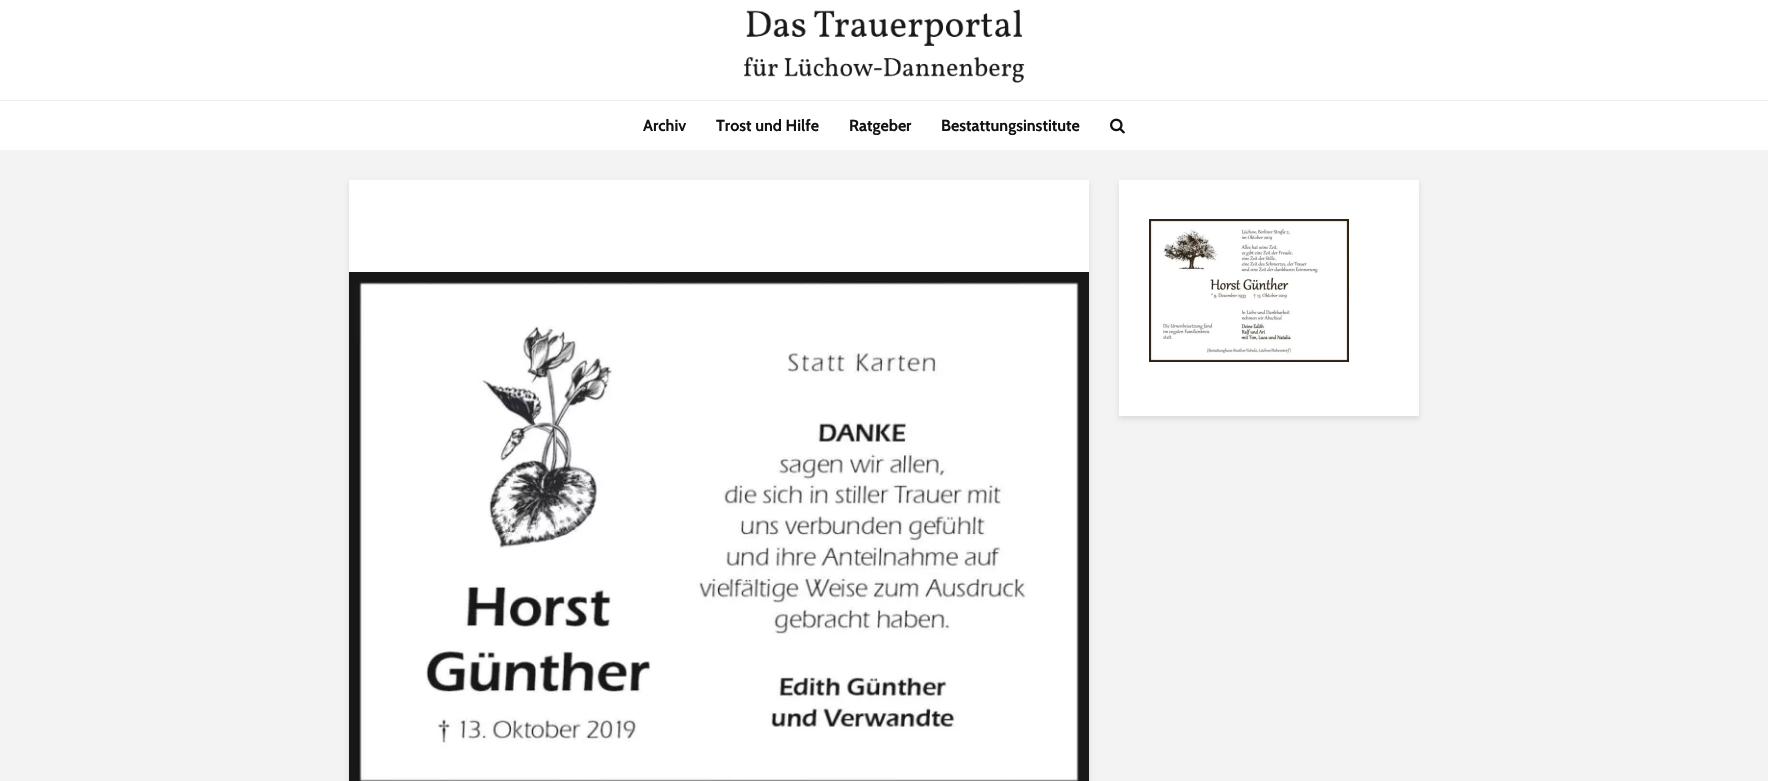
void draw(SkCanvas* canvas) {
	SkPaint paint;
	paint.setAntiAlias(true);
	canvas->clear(0xfff3f3f3);
	paint.setColor(0xffffffff);
	canvas->drawRect(SkRect::MakeXYWH(0, 0, 1768, 100), paint);
	canvas->drawImageRect(SkImages::DeferredFromEncodedData(SkData::MakeFromFileName("img1.png")), SkRect::MakeXYWH(743, 9, 282, 74), SkSamplingOptions());
	canvas->drawRect(SkRect::MakeXYWH(0, 101, 1768, 49), paint);
	paint.setColor(0xffeeeeee);
	canvas->drawRect(SkRect::MakeXYWH(0, 100, 1768, 1), paint);
	SkFont f1(fontMgr->matchFamilyStyle("Cabin", SkFontStyle::Bold()), 16);
	f1.setSubpixel(true);
	paint.setColor(0xff111111);
	canvas->drawString("Archiv", 643, 131, f1, paint);
	canvas->drawString("Trost und Hilfe", 716, 131, f1, paint);
	canvas->drawString("Ratgeber", 849, 131, f1, paint);
	canvas->drawString("Bestattungsinstitute", 941, 131, f1, paint);
	canvas->drawImageRect(SkImages::DeferredFromEncodedData(SkData::MakeFromFileName("img2.png")), SkRect::MakeXYWH(1110, 118, 15, 16), SkSamplingOptions());
	paint.setColor(0x1a000101);
	paint.setMaskFilter(SkMaskFilter::MakeBlur(kNormal_SkBlurStyle, 2.5));
	canvas->drawRect(SkRect::MakeXYWH(349, 183, 740, 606), paint);
	paint.setMaskFilter(nullptr);
	paint.setColor(0xffffffff);
	canvas->drawRect(SkRect::MakeXYWH(349, 180, 740, 92), paint);
	canvas->drawImageRect(SkImages::DeferredFromEncodedData(SkData::MakeFromFileName("img3.png")), SkRect::MakeXYWH(349, 272, 740, 509), SkSamplingOptions());
	paint.setColor(0x1a000101);
	paint.setMaskFilter(SkMaskFilter::MakeBlur(kNormal_SkBlurStyle, 2.5));
	canvas->drawRect(SkRect::MakeXYWH(1119, 183, 300, 236), paint);
	paint.setMaskFilter(nullptr);
	paint.setColor(0xffffffff);
	canvas->drawRect(SkRect::MakeXYWH(1119, 180, 300, 236), paint);
	canvas->drawImageRect(SkImages::DeferredFromEncodedData(SkData::MakeFromFileName("img4.png")), SkRect::MakeXYWH(1149, 219, 200, 143), SkSamplingOptions());
}
